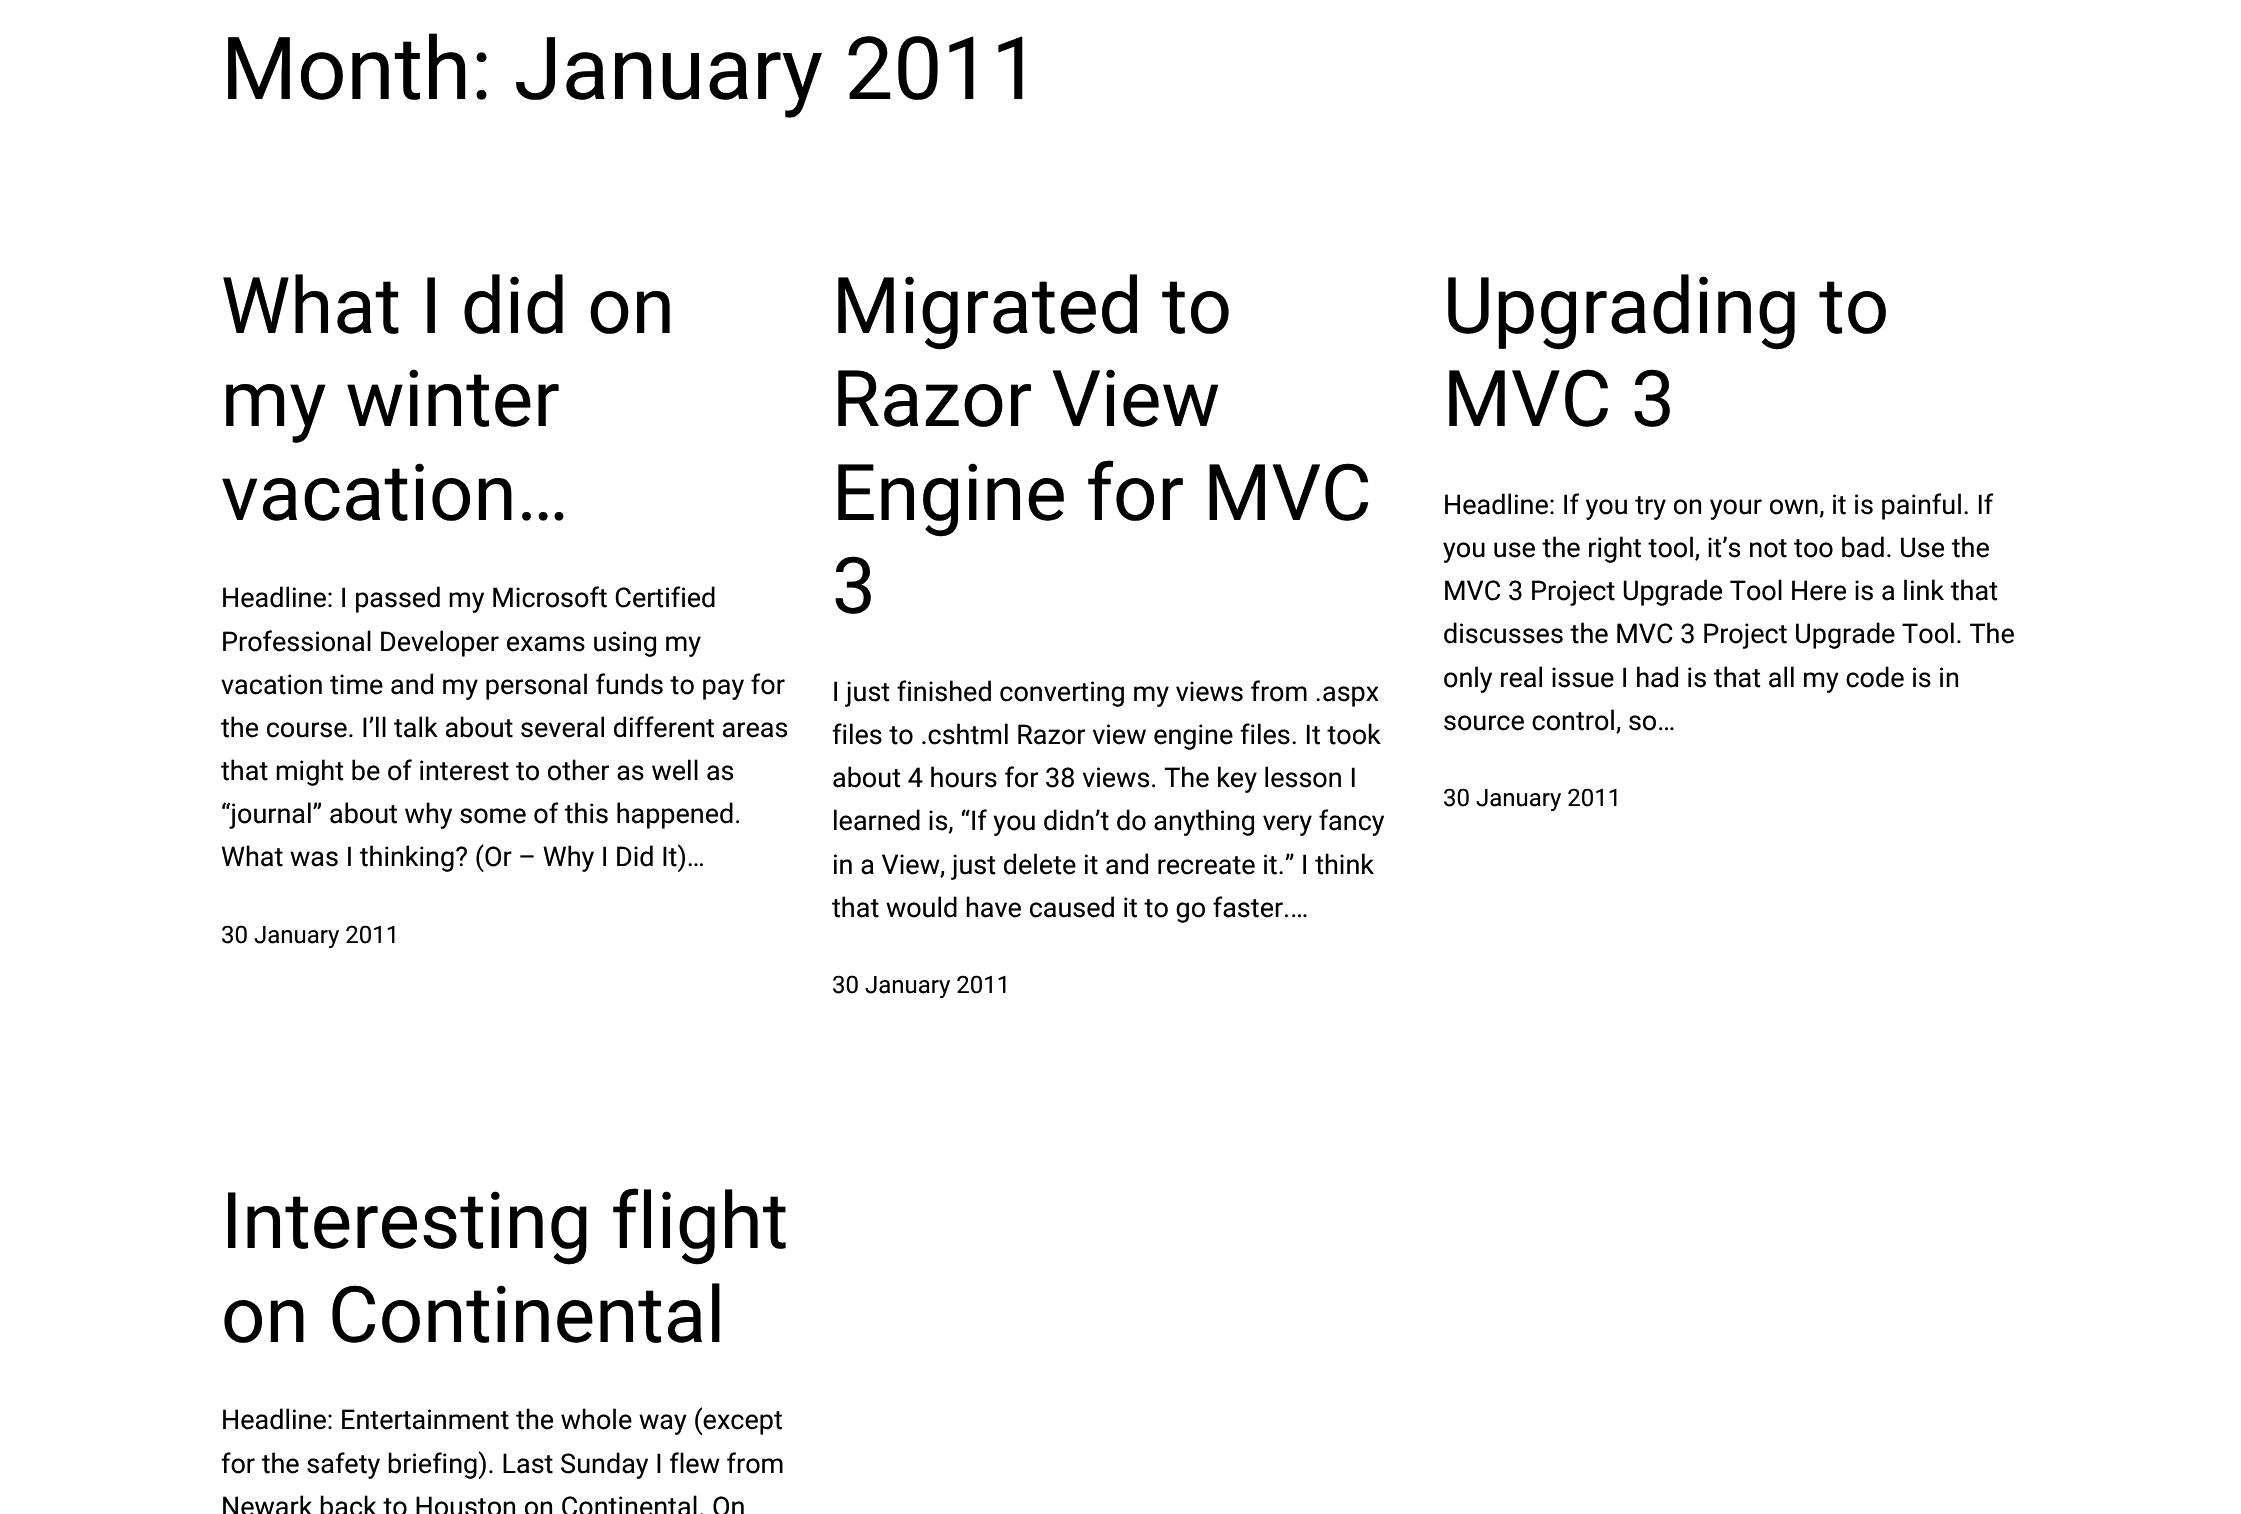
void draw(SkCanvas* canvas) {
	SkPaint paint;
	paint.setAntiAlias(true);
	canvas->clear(0xffffffff);
	SkFont f1(fontMgr->matchFamilyStyle("Roboto", SkFontStyle::Normal()), 87);
	f1.setSubpixel(true);
	paint.setColor(0xff000000);
	canvas->drawString("Month: January 2011", 221, 99, f1, paint);
	SkFont f2(fontMgr->matchFamilyStyle("Roboto", SkFontStyle::Normal()), 78);
	f2.setSubpixel(true);
	canvas->drawString("What I did on", 221, 333, f2, paint);
	canvas->drawString("my winter", 221, 426, f2, paint);
	canvas->drawString("vacation…", 221, 520, f2, paint);
	SkFont f3(fontMgr->matchFamilyStyle("Roboto", SkFontStyle::Normal()), 27);
	f3.setSubpixel(true);
	canvas->drawString("Headline: I passed my Microsoft Certified", 221, 607, f3, paint);
	canvas->drawString("Professional Developer exams using my", 221, 651, f3, paint);
	canvas->drawString("vacation time and my personal funds to pay for", 221, 694, f3, paint);
	canvas->drawString("the course. I’ll talk about several different areas", 221, 737, f3, paint);
	canvas->drawString("that might be of interest to other as well as", 221, 780, f3, paint);
	canvas->drawString("“journal” about why some of this happened.", 221, 823, f3, paint);
	canvas->drawString("What was I thinking? (Or – Why I Did It)…", 221, 866, f3, paint);
	SkFont f4(fontMgr->matchFamilyStyle("Roboto", SkFontStyle::Normal()), 24);
	f4.setSubpixel(true);
	canvas->drawString("30 January 2011", 221, 943, f4, paint);
	canvas->drawString("Migrated to", 832, 333, f2, paint);
	canvas->drawString("Razor View", 832, 426, f2, paint);
	canvas->drawString("Engine for MVC", 832, 520, f2, paint);
	canvas->drawString("3", 832, 613, f2, paint);
	canvas->drawString("I just finished converting my views from .aspx", 832, 701, f3, paint);
	canvas->drawString("files to .cshtml Razor view engine files. It took", 832, 744, f3, paint);
	canvas->drawString("about 4 hours for 38 views. The key lesson I", 832, 787, f3, paint);
	canvas->drawString("learned is, “If you didn’t do anything very fancy", 832, 830, f3, paint);
	canvas->drawString("in a View, just delete it and recreate it.” I think", 832, 874, f3, paint);
	canvas->drawString("that would have caused it to go faster.…", 832, 917, f3, paint);
	canvas->drawString("30 January 2011", 832, 993, f4, paint);
	canvas->drawString("Upgrading to", 1443, 333, f2, paint);
	canvas->drawString("MVC 3", 1443, 426, f2, paint);
	canvas->drawString("Headline: If you try on your own, it is painful. If", 1443, 514, f3, paint);
	canvas->drawString("you use the right tool, it’s not too bad. Use the", 1443, 557, f3, paint);
	canvas->drawString("MVC 3 Project Upgrade Tool Here is a link that", 1443, 600, f3, paint);
	canvas->drawString("discusses the MVC 3 Project Upgrade Tool. The", 1443, 643, f3, paint);
	canvas->drawString("only real issue I had is that all my code is in", 1443, 687, f3, paint);
	canvas->drawString("source control, so…", 1443, 730, f3, paint);
	canvas->drawString("30 January 2011", 1443, 806, f4, paint);
	canvas->drawString("Interesting flight", 221, 1248, f2, paint);
	canvas->drawString("on Continental", 221, 1342, f2, paint);
	canvas->drawString("Headline: Entertainment the whole way (except", 221, 1429, f3, paint);
	canvas->drawString("for the safety briefing). Last Sunday I flew from", 221, 1473, f3, paint);
	canvas->drawString("Newark back to Houston on Continental. On", 221, 1516, f3, paint);
}
